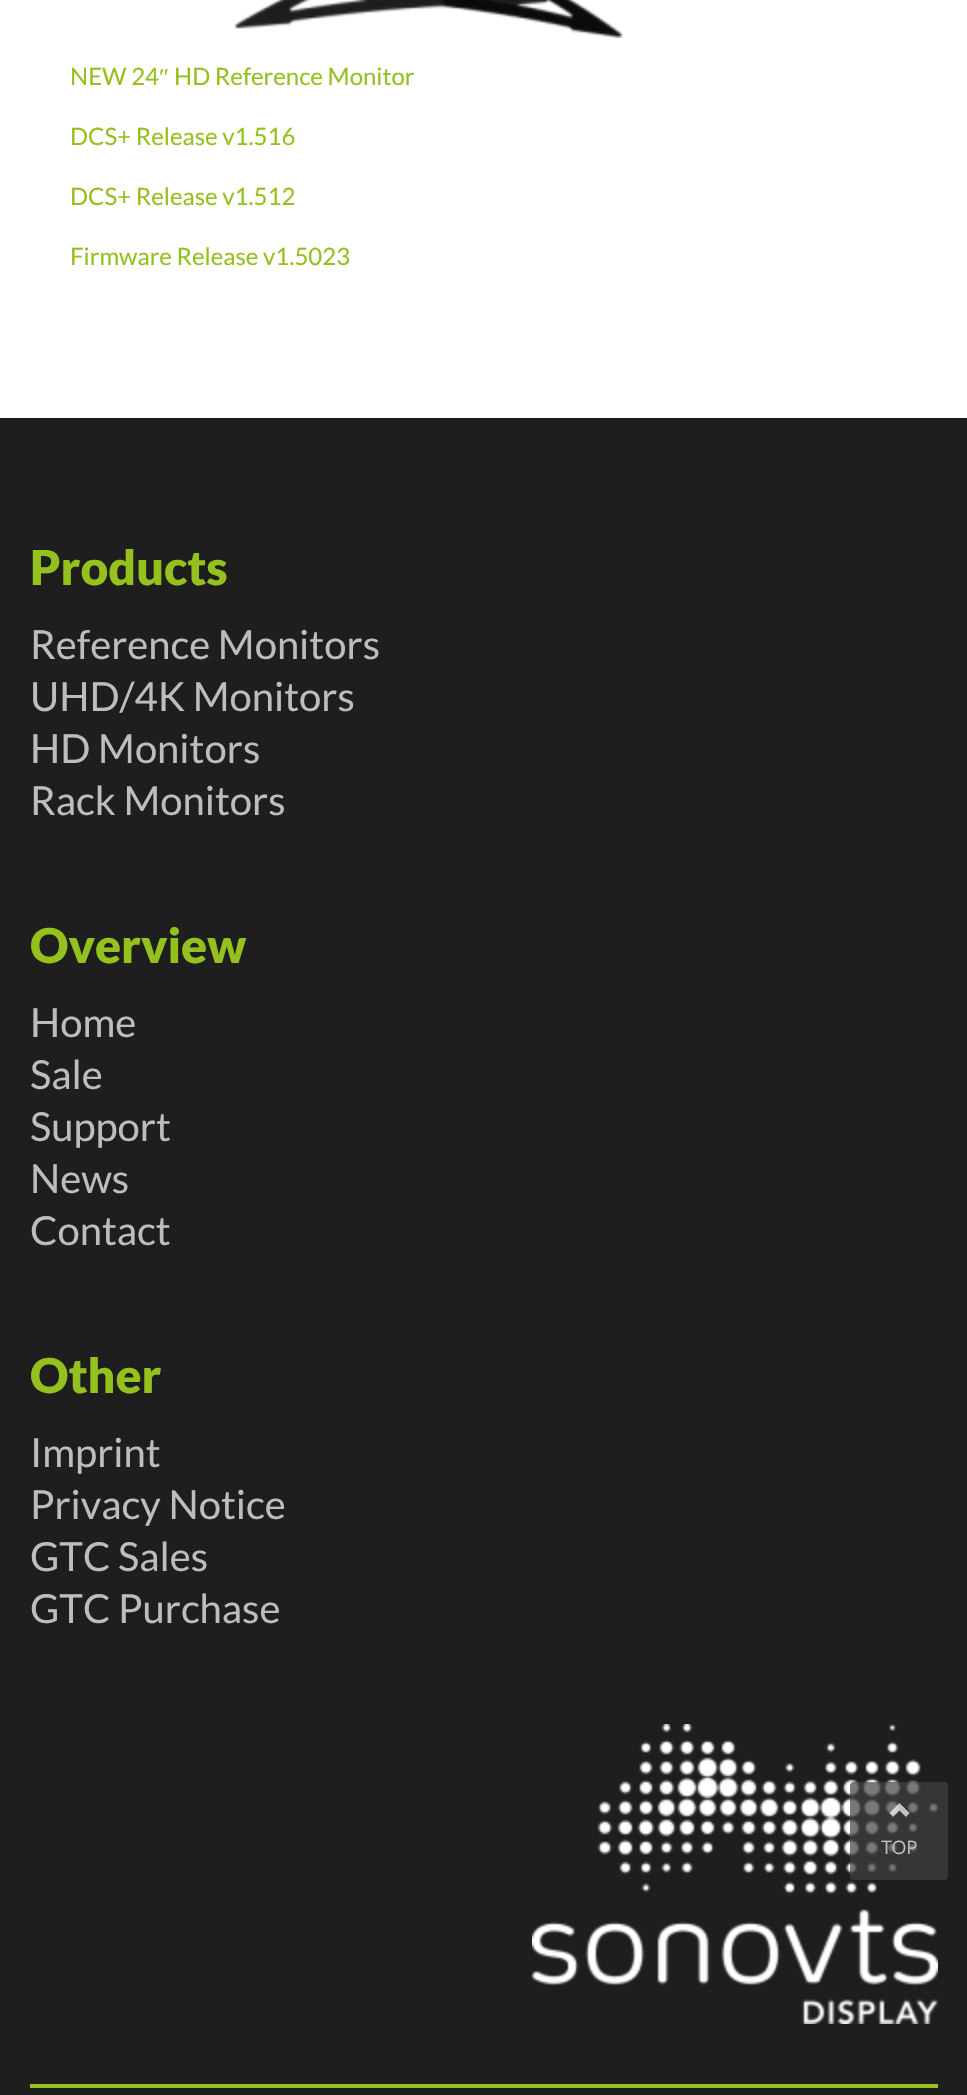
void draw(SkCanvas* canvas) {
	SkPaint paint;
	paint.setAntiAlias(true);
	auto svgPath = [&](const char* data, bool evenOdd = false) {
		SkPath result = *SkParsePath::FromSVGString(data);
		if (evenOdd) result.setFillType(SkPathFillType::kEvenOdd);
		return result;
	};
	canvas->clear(0xffffffff);
	canvas->drawImageRect(SkImages::DeferredFromEncodedData(SkData::MakeFromFileName("img1.png")), SkRect::MakeXYWH(234, 0, 389, 38), SkSamplingOptions());
	SkFont f1(fontMgr->matchFamilyStyle("Lato", SkFontStyle::Normal()), 24);
	f1.setSubpixel(true);
	paint.setColor(0xff95c11e);
	canvas->drawString("NEW 24", 70, 85, f1, paint);
	SkFont f2(fontMgr->matchFamilyStyle("Liberation Serif", SkFontStyle::Normal()), 24);
	f2.setSubpixel(true);
	canvas->drawString("″", 159, 85, f2, paint);
	canvas->drawString("HD Reference Monitor", 174, 85, f1, paint);
	canvas->drawString("DCS+ Release v1.516", 70, 145, f1, paint);
	canvas->drawString("DCS+ Release v1.512", 70, 205, f1, paint);
	canvas->drawString("Firmware Release v1.5023", 70, 265, f1, paint);
	paint.setColor(0xff1e1e1e);
	canvas->drawRect(SkRect::MakeXYWH(0, 418, 967, 1677), paint);
	SkFont f3(fontMgr->matchFamilyStyle("Lato", SkFontStyle(900, SkFontStyle::kNormal_Width, SkFontStyle::kUpright_Slant)), 48);
	f3.setSubpixel(true);
	paint.setColor(0xff95c11e);
	canvas->drawString("Products", 30, 585, f3, paint);
	SkFont f4(fontMgr->matchFamilyStyle("Lato", SkFontStyle::Normal()), 40);
	f4.setSubpixel(true);
	paint.setColor(0xffbdbdbd);
	canvas->drawString("Reference Monitors", 30, 659, f4, paint);
	canvas->drawString("UHD/4K Monitors", 30, 711, f4, paint);
	canvas->drawString("HD Monitors", 30, 763, f4, paint);
	canvas->drawString("Rack Monitors", 30, 815, f4, paint);
	paint.setColor(0xff95c11e);
	canvas->drawString("Overview", 30, 963, f3, paint);
	paint.setColor(0xffbdbdbd);
	canvas->drawString("Home", 30, 1037, f4, paint);
	canvas->drawString("Sale", 30, 1089, f4, paint);
	canvas->drawString("Support", 30, 1141, f4, paint);
	canvas->drawString("News", 30, 1193, f4, paint);
	canvas->drawString("Contact", 30, 1245, f4, paint);
	paint.setColor(0xff95c11e);
	canvas->drawString("Other", 30, 1393, f3, paint);
	paint.setColor(0xffbdbdbd);
	canvas->drawString("Imprint", 30, 1467, f4, paint);
	canvas->drawString("Privacy Notice", 30, 1519, f4, paint);
	canvas->drawString("GTC Sales", 30, 1571, f4, paint);
	canvas->drawString("GTC Purchase", 30, 1623, f4, paint);
	canvas->drawImageRect(SkImages::DeferredFromEncodedData(SkData::MakeFromFileName("img2.png")), SkRect::MakeXYWH(532, 1724, 406, 300), SkSamplingOptions());
	paint.setColor(0xff95c11e);
	canvas->drawRect(SkRect::MakeXYWH(30, 2084, 908, 4), paint);
	paint.setColor(0xb3404040);
	canvas->drawRoundRect(SkRect::MakeXYWH(850, 1782, 98, 98), 4, 4, paint);
	paint.setColor(0xb3ffffff);
	canvas->drawPath(svgPath("M899.5 1803L909.5 1813L906 1817L899.5 1810.5L893 1817L889.5 1813Z"), paint);
	SkFont f5(fontMgr->matchFamilyStyle("Lato", SkFontStyle::Bold()), 18);
	f5.setSubpixel(true);
	paint.setColor(0xffc6c6c6);
	canvas->drawString("TOP", 881, 1854, f5, paint);
}
